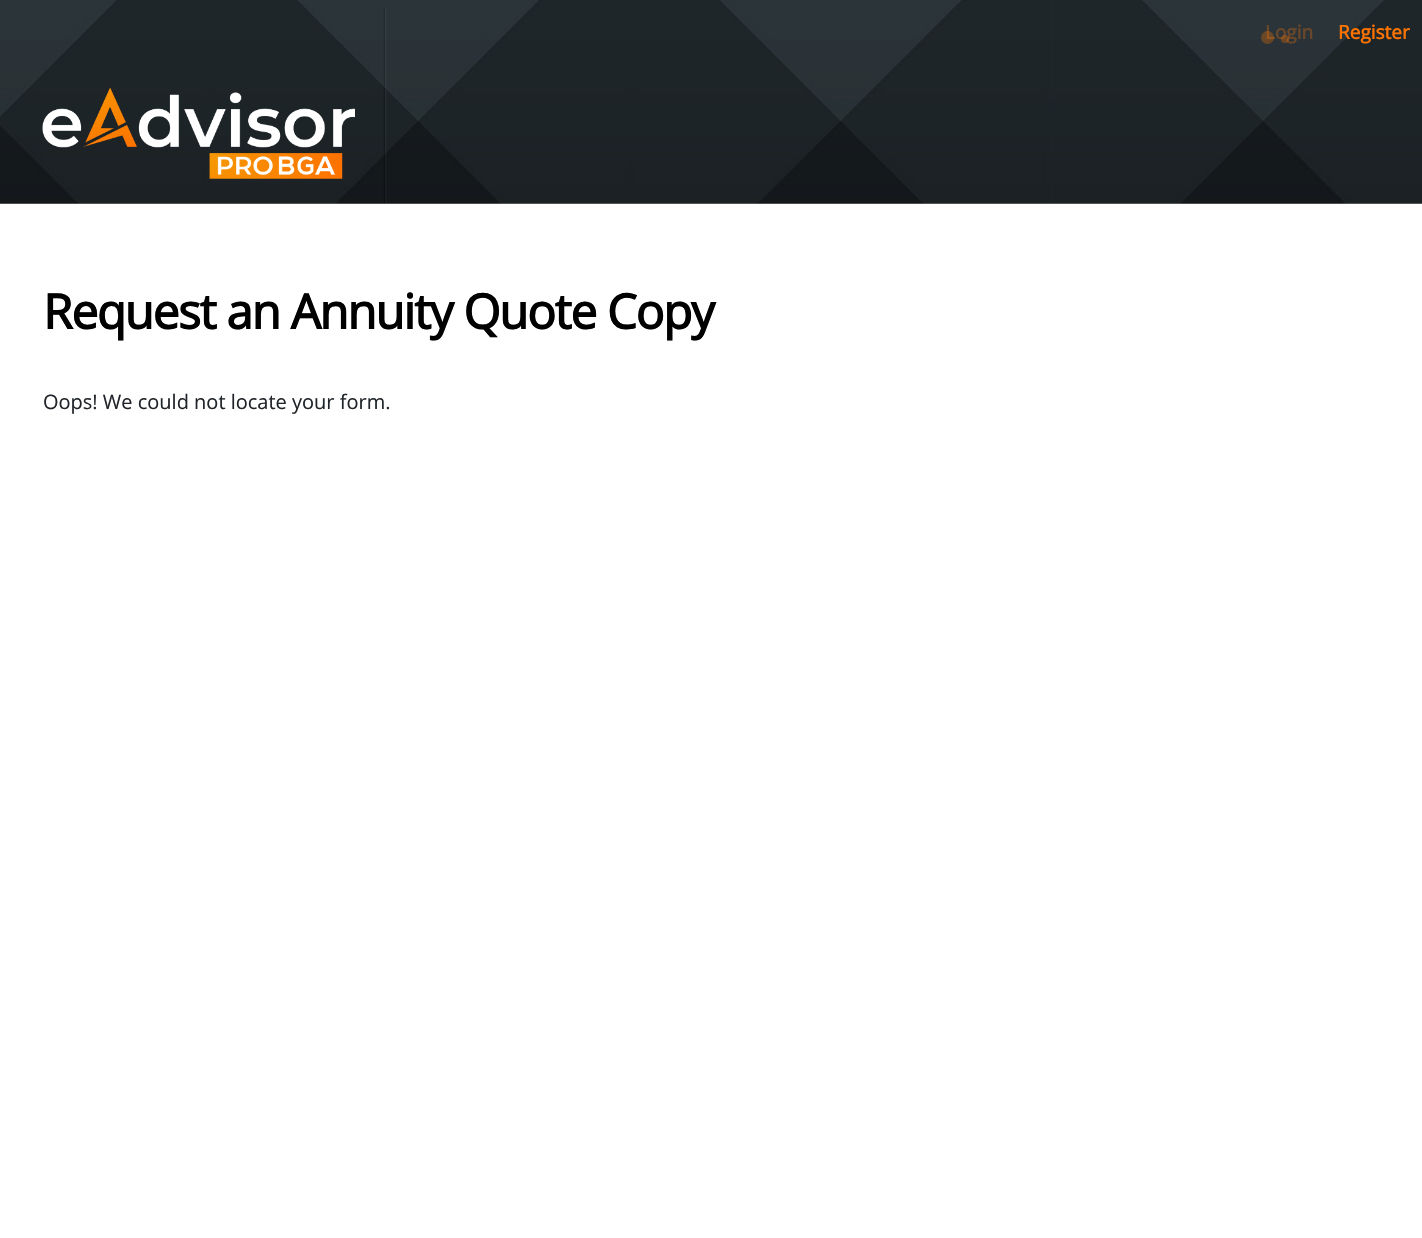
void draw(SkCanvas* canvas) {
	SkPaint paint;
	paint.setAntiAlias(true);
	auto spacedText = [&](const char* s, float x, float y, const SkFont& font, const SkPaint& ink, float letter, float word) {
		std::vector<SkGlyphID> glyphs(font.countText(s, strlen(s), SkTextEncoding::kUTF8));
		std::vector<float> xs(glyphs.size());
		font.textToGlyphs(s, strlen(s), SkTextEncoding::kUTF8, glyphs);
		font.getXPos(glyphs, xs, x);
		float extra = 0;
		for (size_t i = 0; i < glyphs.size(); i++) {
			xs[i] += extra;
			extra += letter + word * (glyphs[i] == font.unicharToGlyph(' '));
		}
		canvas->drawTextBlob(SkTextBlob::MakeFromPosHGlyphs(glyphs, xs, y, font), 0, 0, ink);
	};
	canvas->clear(0xffffffff);
	canvas->drawImageRect(SkImages::DeferredFromEncodedData(SkData::MakeFromFileName("img1.png")), SkRect::MakeXYWH(0, 0, 1422, 204), SkSamplingOptions());
	SkFont f1(fontMgr->matchFamilyStyle("Open Sans", SkFontStyle::Bold()), 19);
	f1.setSubpixel(true);
	paint.setColor(0xff6a4728);
	canvas->drawString("Login", 1265, 39, f1, paint);
	paint.setColor(0x4dfd7300);
	canvas->drawCircle(1267.5, 37.5, 6.5, paint);
	canvas->drawCircle(1285, 39, 4, paint);
	paint.setColor(0xfffd7300);
	canvas->drawString("Register", 1338, 39, f1, paint);
	canvas->drawImageRect(SkImages::DeferredFromEncodedData(SkData::MakeFromFileName("img2.png")), SkRect::MakeXYWH(42, 87, 313, 92), SkSamplingOptions());
	SkFont f2(fontMgr->matchFamilyStyle("Open Sans", SkFontStyle::Bold()), 48);
	f2.setSubpixel(true);
	paint.setColor(0xff000000);
	spacedText("Request an Annuity Quote Copy", 43, 329, f2, paint, -1.45, 0);
	SkFont f3(fontMgr->matchFamilyStyle("Open Sans", SkFontStyle::Normal()), 20);
	f3.setSubpixel(true);
	paint.setColor(0xff212529);
	canvas->drawString("Oops! We could not locate your form.", 43, 409, f3, paint);
}
